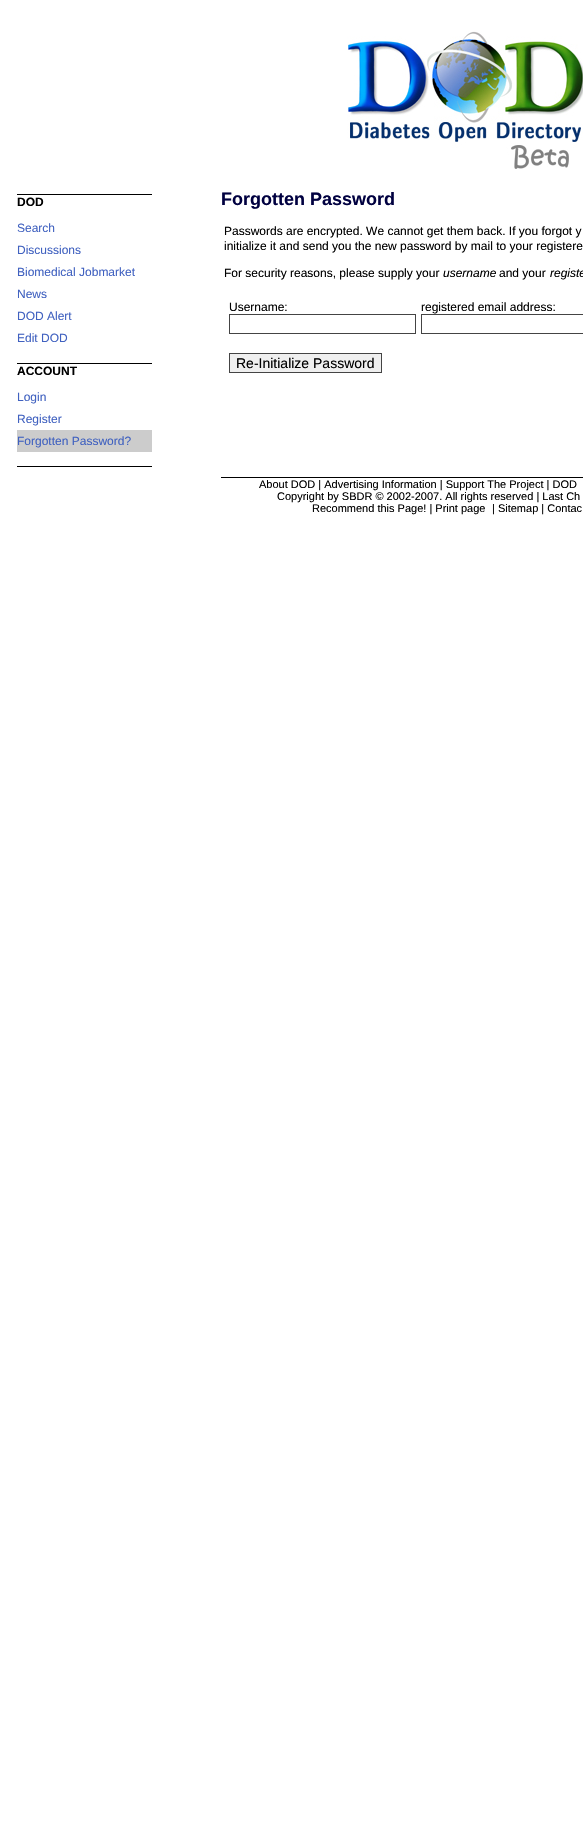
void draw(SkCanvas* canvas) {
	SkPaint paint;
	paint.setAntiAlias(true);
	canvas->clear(0xffffffff);
	paint.setColor(0xff000000);
	canvas->drawRect(SkRect::MakeXYWH(17, 194, 135, 1), paint);
	SkFont f1(fontMgr->matchFamilyStyle("Liberation Sans", SkFontStyle::Bold()), 12);
	f1.setSubpixel(true);
	canvas->drawString("DOD", 17, 206, f1, paint);
	SkFont f2(fontMgr->matchFamilyStyle("Liberation Sans", SkFontStyle::Normal()), 12);
	f2.setSubpixel(true);
	paint.setColor(0xff4061c0);
	canvas->drawString("Search", 17, 232, f2, paint);
	canvas->drawString("Discussions", 17, 254, f2, paint);
	canvas->drawString("Biomedical Jobmarket", 17, 276, f2, paint);
	canvas->drawString("News", 17, 298, f2, paint);
	canvas->drawString("DOD Alert", 17, 320, f2, paint);
	canvas->drawString("Edit DOD", 17, 342, f2, paint);
	paint.setColor(0xff000000);
	canvas->drawRect(SkRect::MakeXYWH(17, 363, 135, 1), paint);
	canvas->drawString("ACCOUNT", 17, 375, f1, paint);
	paint.setColor(0xff4061c0);
	canvas->drawString("Login", 17, 401, f2, paint);
	canvas->drawString("Register", 17, 423, f2, paint);
	paint.setColor(0xffcccccc);
	canvas->drawRect(SkRect::MakeXYWH(17, 430, 135, 22), paint);
	paint.setColor(0xff4061c0);
	canvas->drawString("Forgotten Password?", 17, 445, f2, paint);
	paint.setColor(0xff000000);
	canvas->drawRect(SkRect::MakeXYWH(17, 466, 135, 1), paint);
	canvas->drawImageRect(SkImages::DeferredFromEncodedData(SkData::MakeFromFileName("img1.png")), SkRect::MakeXYWH(347, 31, 236, 138), SkSamplingOptions());
	SkFont f3(fontMgr->matchFamilyStyle("Liberation Sans", SkFontStyle::Bold()), 18);
	f3.setSubpixel(true);
	paint.setColor(0xff000040);
	canvas->drawString("Forgotten Password", 221, 205, f3, paint);
	paint.setColor(0xff000000);
	canvas->drawString("Passwords are encrypted. We cannot get them back. If you forgot y", 224, 235, f2, paint);
	canvas->drawString("initialize it and send you the new password by mail to your registere", 224, 250, f2, paint);
	canvas->drawString("For security reasons, please supply your", 224, 277, f2, paint);
	SkFont f4(fontMgr->matchFamilyStyle("Liberation Sans", SkFontStyle::Italic()), 12);
	f4.setSubpixel(true);
	canvas->drawString("username", 443, 277, f4, paint);
	canvas->drawString("and your", 499, 277, f2, paint);
	canvas->drawString("registe", 550, 277, f4, paint);
	canvas->drawString("Username:", 229, 311, f2, paint);
	paint.setStroke(true);
	paint.setStrokeWidth(1);
	paint.setColor(0xff444444);
	canvas->drawRect(SkRect::MakeXYWH(229.5, 314.5, 186, 19), paint);
	paint.setStroke(false);
	paint.setColor(0xff000000);
	canvas->drawString("registered email address:", 421, 311, f2, paint);
	paint.setStroke(true);
	paint.setColor(0xff444444);
	canvas->drawRect(SkRect::MakeXYWH(421.5, 314.5, 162, 19), paint);
	paint.setStroke(false);
	paint.setColor(0xffefefef);
	canvas->drawRect(SkRect::MakeXYWH(229.5, 353.5, 152, 19), paint);
	paint.setStroke(true);
	paint.setColor(0xff444444);
	canvas->drawRect(SkRect::MakeXYWH(229.5, 353.5, 152, 19), paint);
	SkFont f5(fontMgr->matchFamilyStyle("Liberation Sans", SkFontStyle::Normal()), 14);
	f5.setSubpixel(true);
	paint.setStroke(false);
	paint.setColor(0xff000000);
	canvas->drawString("Re-Initialize Password", 236, 368, f5, paint);
	canvas->drawRect(SkRect::MakeXYWH(221, 477, 362, 1), paint);
	SkFont f6(fontMgr->matchFamilyStyle("Liberation Sans", SkFontStyle::Normal()), 11);
	f6.setSubpixel(true);
	canvas->drawString("About DOD | Advertising Information | Support The Project | DOD", 259, 488, f6, paint);
	canvas->drawString("Copyright by SBDR © 2002-2007. All rights reserved | Last Ch", 277, 500, f6, paint);
	canvas->drawString("Recommend this Page! | Print page", 312, 512, f6, paint);
	canvas->drawString("| Sitemap | Contac", 492, 512, f6, paint);
}
